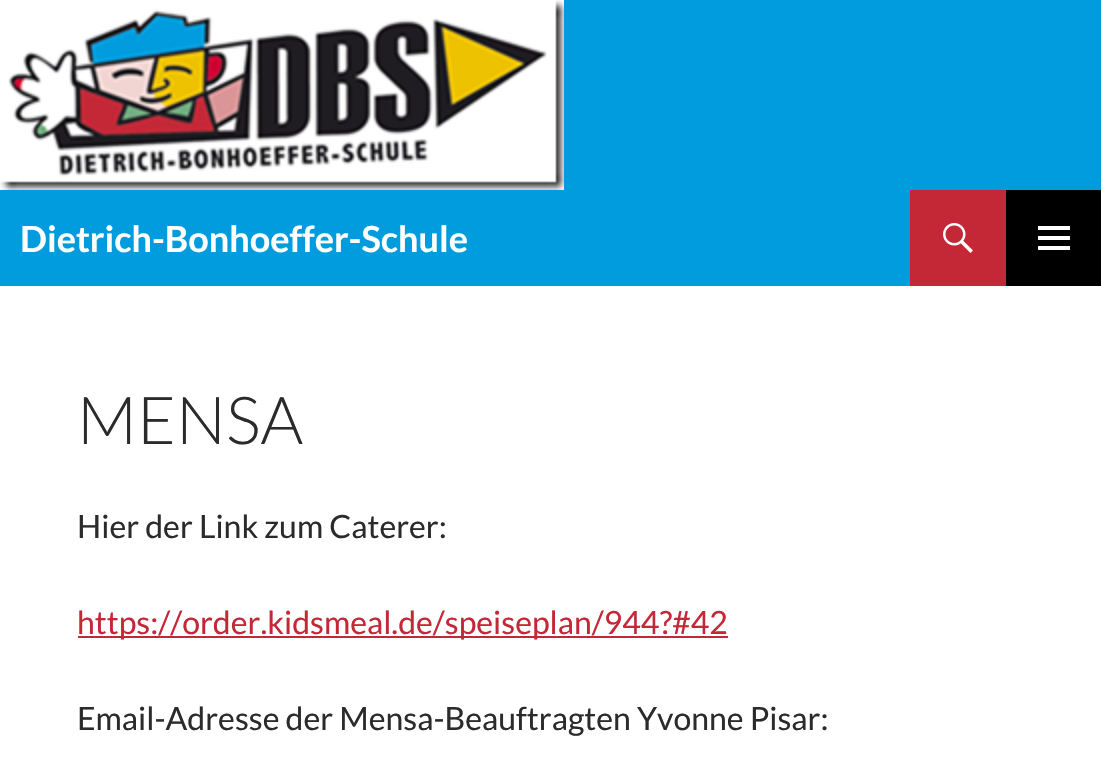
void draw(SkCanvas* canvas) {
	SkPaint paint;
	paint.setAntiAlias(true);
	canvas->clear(0xffffffff);
	paint.setColor(0xff009cdd);
	canvas->drawRect(SkRect::MakeXYWH(564, 0, 537, 190), paint);
	canvas->drawImageRect(SkImages::DeferredFromEncodedData(SkData::MakeFromFileName("img1.png")), SkRect::MakeXYWH(0, 0, 564, 190), SkSamplingOptions());
	canvas->drawRect(SkRect::MakeXYWH(0, 190, 910, 96), paint);
	SkFont f1(fontMgr->matchFamilyStyle("Lato", SkFontStyle::Bold()), 36);
	f1.setSubpixel(true);
	paint.setColor(0xffffffff);
	canvas->drawString("Dietrich-Bonhoeffer-Schule", 20, 252, f1, paint);
	paint.setColor(0xffc42837);
	canvas->drawRect(SkRect::MakeXYWH(910, 190, 96, 96), paint);
	canvas->drawImageRect(SkImages::DeferredFromEncodedData(SkData::MakeFromFileName("img2.png")), SkRect::MakeXYWH(943, 223, 30, 30), SkSamplingOptions());
	paint.setColor(0xff000000);
	canvas->drawRect(SkRect::MakeXYWH(1006, 190, 95, 96), paint);
	canvas->drawImageRect(SkImages::DeferredFromEncodedData(SkData::MakeFromFileName("img3.png")), SkRect::MakeXYWH(1038, 226, 32, 24), SkSamplingOptions());
	SkFont f2(fontMgr->matchFamilyStyle("Lato", SkFontStyle(300, SkFontStyle::kNormal_Width, SkFontStyle::kUpright_Slant)), 66);
	f2.setSubpixel(true);
	paint.setColor(0xff2b2b2b);
	canvas->drawString("MENSA", 77, 444, f2, paint);
	SkFont f3(fontMgr->matchFamilyStyle("Lato", SkFontStyle::Normal()), 32);
	f3.setSubpixel(true);
	canvas->drawString("Hier der Link zum Caterer:", 77, 538, f3, paint);
	paint.setColor(0xffc42837);
	canvas->drawRect(SkRect::MakeXYWH(78, 636, 650, 2), paint);
	canvas->drawString("https://order.kidsmeal.de/speiseplan/944?#42", 77, 634, f3, paint);
	paint.setColor(0xff2b2b2b);
	canvas->drawString("Email-Adresse der Mensa-Beauftragten Yvonne Pisar:", 77, 730, f3, paint);
}
